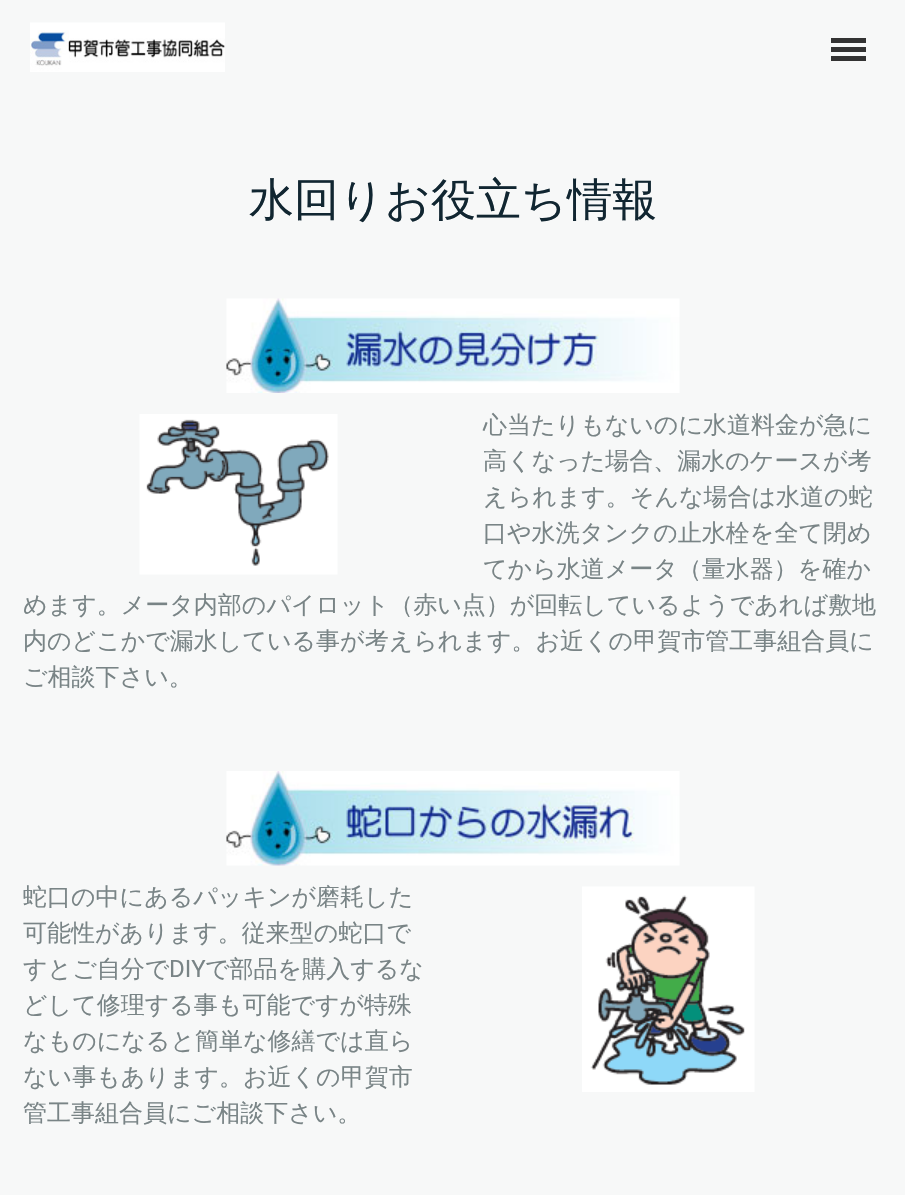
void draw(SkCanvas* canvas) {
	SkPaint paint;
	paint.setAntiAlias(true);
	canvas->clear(0xfff7f8f8);
	canvas->drawImageRect(SkImages::DeferredFromEncodedData(SkData::MakeFromFileName("img1.png")), SkRect::MakeXYWH(30, 22, 195, 50), SkSamplingOptions());
	paint.setColor(0xff333333);
	canvas->drawRect(SkRect::MakeXYWH(831, 47, 35, 5), paint);
	canvas->drawRect(SkRect::MakeXYWH(831, 38, 35, 5), paint);
	canvas->drawRect(SkRect::MakeXYWH(831, 56, 35, 5), paint);
	SkFont f1(fontMgr->matchFamilyStyle("WenQuanYi Zen Hei", SkFontStyle(500, SkFontStyle::kNormal_Width, SkFontStyle::kUpright_Slant)), 45);
	f1.setSubpixel(true);
	paint.setColor(0xff112631);
	canvas->drawString("水回りお役立ち情報", 249, 215, f1, paint);
	canvas->drawImageRect(SkImages::DeferredFromEncodedData(SkData::MakeFromFileName("img2.png")), SkRect::MakeXYWH(226, 298, 454, 95), SkSamplingOptions());
	SkFont f2(fontMgr->matchFamilyStyle("WenQuanYi Zen Hei", SkFontStyle(500, SkFontStyle::kNormal_Width, SkFontStyle::kUpright_Slant)), 24);
	f2.setSubpixel(true);
	paint.setColor(0xff798486);
	canvas->drawString("心当たりもないのに水道料金が急に", 483, 433, f2, paint);
	canvas->drawString("高くなった場合、漏水のケースが考", 483, 469, f2, paint);
	canvas->drawString("えられます。そんな場合は水道の蛇", 483, 505, f2, paint);
	canvas->drawString("口や水洗タンクの止水栓を全て閉め", 483, 541, f2, paint);
	canvas->drawString("てから水道メータ（量水器）を確か", 483, 577, f2, paint);
	canvas->drawString("めます。メータ内部のパイロット（赤い点）が回転しているようであれば敷地", 23, 613, f2, paint);
	canvas->drawString("内のどこかで漏水している事が考えられます。お近くの甲賀市管工事組合員に", 23, 649, f2, paint);
	canvas->drawString("ご相談下さい。", 23, 685, f2, paint);
	canvas->drawImageRect(SkImages::DeferredFromEncodedData(SkData::MakeFromFileName("img3.png")), SkRect::MakeXYWH(139, 414, 199, 161), SkSamplingOptions());
	canvas->drawImageRect(SkImages::DeferredFromEncodedData(SkData::MakeFromFileName("img4.png")), SkRect::MakeXYWH(226, 771, 454, 95), SkSamplingOptions());
	canvas->drawString("蛇口の中にあるパッキンが磨耗した", 23, 905, f2, paint);
	canvas->drawString("可能性があります。従来型の蛇口で", 23, 941, f2, paint);
	canvas->drawString("すとご自分で", 23, 977, f2, paint);
	SkFont f3(fontMgr->matchFamilyStyle("Roboto", SkFontStyle::Normal()), 24);
	f3.setSubpixel(true);
	canvas->drawString("DIY", 169, 977, f3, paint);
	canvas->drawString("で部品を購入するな", 205, 977, f2, paint);
	canvas->drawString("どして修理する事も可能ですが特殊", 23, 1013, f2, paint);
	canvas->drawString("なものになると簡単な修繕では直ら", 23, 1049, f2, paint);
	canvas->drawString("ない事もあります。お近くの甲賀市", 23, 1085, f2, paint);
	canvas->drawString("管工事組合員にご相談下さい。", 23, 1121, f2, paint);
	canvas->drawImageRect(SkImages::DeferredFromEncodedData(SkData::MakeFromFileName("img5.png")), SkRect::MakeXYWH(582, 886, 173, 206), SkSamplingOptions());
}
